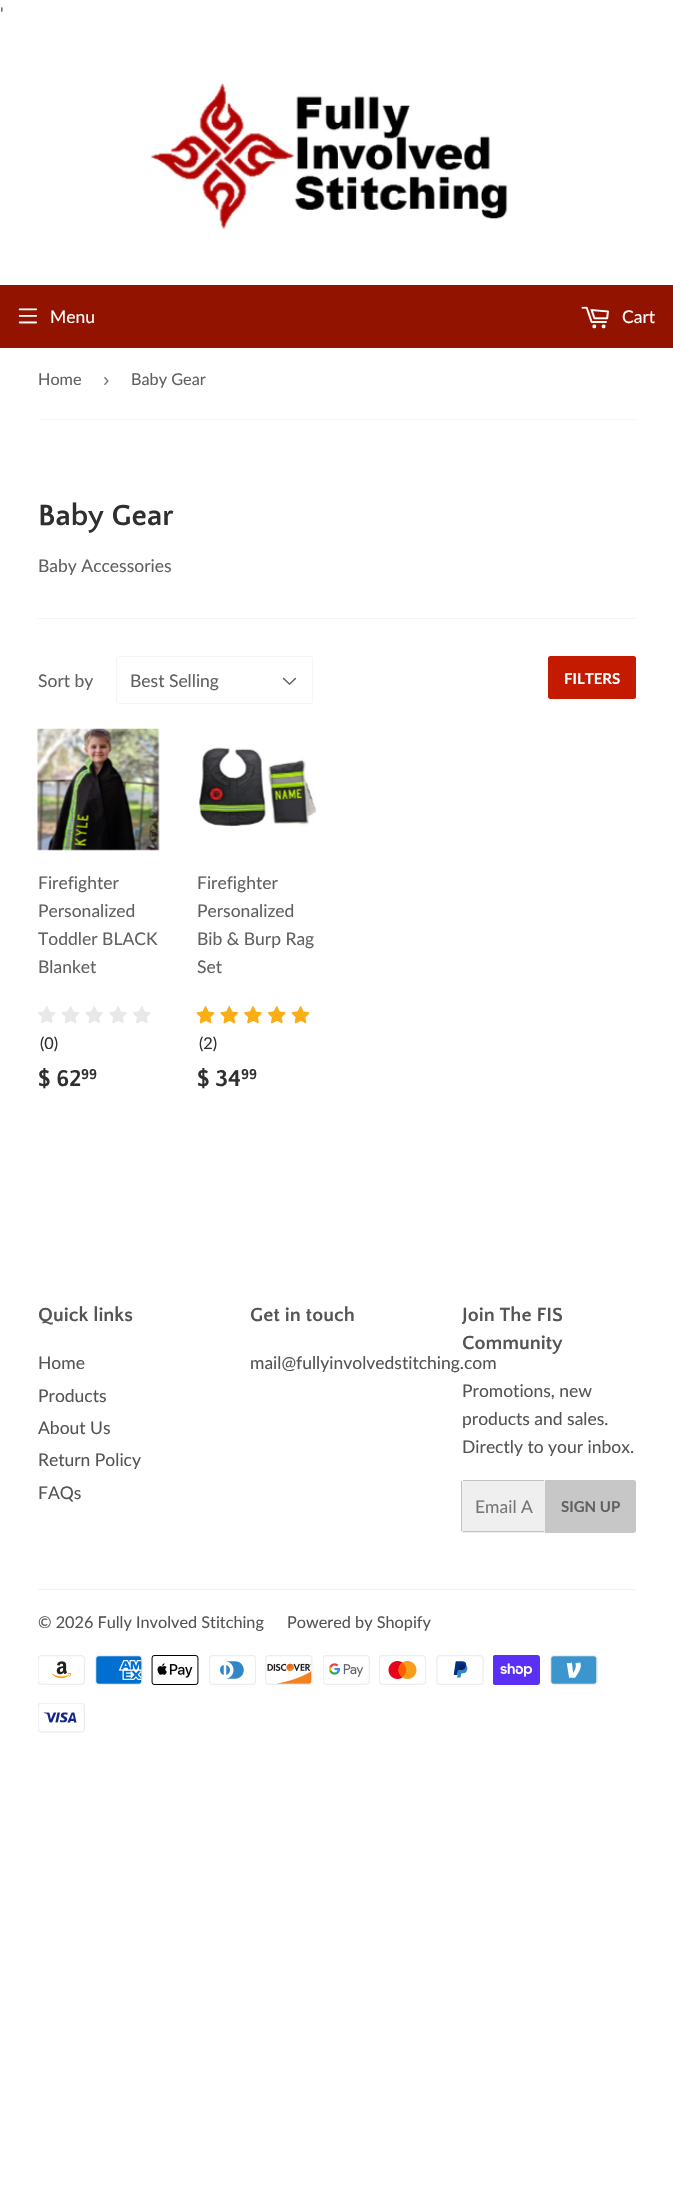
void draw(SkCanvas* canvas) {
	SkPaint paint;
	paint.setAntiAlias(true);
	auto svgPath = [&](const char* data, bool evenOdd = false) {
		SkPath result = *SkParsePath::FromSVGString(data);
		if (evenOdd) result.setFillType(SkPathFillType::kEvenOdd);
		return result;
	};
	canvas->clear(0xffffffff);
	SkFont f1(fontMgr->matchFamilyStyle("Lato", SkFontStyle::Normal()), 17.5);
	f1.setSubpixel(true);
	paint.setColor(0xff606060);
	canvas->drawString("'", 0, 20, f1, paint);
	canvas->drawImageRect(SkImages::DeferredFromEncodedData(SkData::MakeFromFileName("img1.png")), SkRect::MakeXYWH(150, 83, 358, 146), SkSamplingOptions());
	paint.setColor(0xff921300);
	canvas->drawRect(SkRect::MakeXYWH(0, 285, 673, 63), paint);
	canvas->drawImageRect(SkImages::DeferredFromEncodedData(SkData::MakeFromFileName("img2.png")), SkRect::MakeXYWH(18, 308, 20, 16), SkSamplingOptions());
	paint.setColor(0xffffffff);
	canvas->drawString("Menu", 50, 323, f1, paint);
	canvas->drawImageRect(SkImages::DeferredFromEncodedData(SkData::MakeFromFileName("img3.png")), SkRect::MakeXYWH(581, 306, 28, 23), SkSamplingOptions());
	canvas->drawString("Cart", 622, 323, f1, paint);
	paint.setColor(0xfff5f5f5);
	canvas->drawRect(SkRect::MakeXYWH(38, 419, 598, 1), paint);
	SkFont f2(fontMgr->matchFamilyStyle("Lato", SkFontStyle::Normal()), 16.25);
	f2.setSubpixel(true);
	paint.setColor(0xff606060);
	canvas->drawString("Home", 38, 385, f2, paint);
	SkFont f3(fontMgr->matchFamilyStyle("Liberation Sans", SkFontStyle::Normal()), 19);
	f3.setSubpixel(true);
	paint.setColor(0xff767676);
	canvas->drawString("›", 103, 386, f3, paint);
	paint.setColor(0xff606060);
	canvas->drawString("Baby Gear", 131, 385, f2, paint);
	SkFont f4(fontMgr->matchFamilyStyle("Quattrocento Sans", SkFontStyle::Bold()), 30.5);
	f4.setSubpixel(true);
	paint.setColor(0xff2f2f2f);
	canvas->drawString("Baby Gear", 38, 525, f4, paint);
	paint.setColor(0xff606060);
	canvas->drawString("Baby Accessories", 38, 572, f1, paint);
	paint.setColor(0xfff5f5f5);
	canvas->drawRect(SkRect::MakeXYWH(38, 618, 598, 1), paint);
	paint.setColor(0xff606060);
	canvas->drawString("Sort by", 38, 687, f1, paint);
	canvas->drawImageRect(SkImages::DeferredFromEncodedData(SkData::MakeFromFileName("img4.png")), SkRect::MakeXYWH(282, 677, 15, 8), SkSamplingOptions());
	paint.setStroke(true);
	paint.setStrokeWidth(1);
	paint.setColor(0xfff5f5f5);
	canvas->drawRoundRect(SkRect::MakeXYWH(116.5, 656.5, 196, 47), 2, 2, paint);
	paint.setStroke(false);
	paint.setColor(0xff606060);
	canvas->drawString("Best Selling", 130, 687, f1, paint);
	paint.setColor(0xffc31a00);
	canvas->drawRoundRect(SkRect::MakeXYWH(548, 656, 88, 43), 2.5, 2.5, paint);
	SkFont f5(fontMgr->matchFamilyStyle("Lato", SkFontStyle::Bold()), 15);
	f5.setSubpixel(true);
	paint.setColor(0xffffffff);
	canvas->drawString("FILTERS", 564, 684, f5, paint);
	canvas->drawImageRect(SkImages::DeferredFromEncodedData(SkData::MakeFromFileName("img5.png")), SkRect::MakeXYWH(37, 728, 123, 123), SkSamplingOptions());
	paint.setColor(0xff606060);
	canvas->drawString("Firefighter", 38, 889, f1, paint);
	canvas->drawString("Personalized", 38, 917, f1, paint);
	canvas->drawString("Toddler BLACK", 38, 945, f1, paint);
	canvas->drawString("Blanket", 38, 973, f1, paint);
	canvas->drawImageRect(SkImages::DeferredFromEncodedData(SkData::MakeFromFileName("img6.png")), SkRect::MakeXYWH(38, 1006, 18, 17), SkSamplingOptions());
	canvas->drawImageRect(SkImages::DeferredFromEncodedData(SkData::MakeFromFileName("img7.png")), SkRect::MakeXYWH(38, 1006, 10, 17), SkSamplingOptions());
	canvas->drawImageRect(SkImages::DeferredFromEncodedData(SkData::MakeFromFileName("img8.png")), SkRect::MakeXYWH(62, 1006, 18, 18), SkSamplingOptions());
	canvas->drawImageRect(SkImages::DeferredFromEncodedData(SkData::MakeFromFileName("img9.png")), SkRect::MakeXYWH(62, 1006, 9, 17), SkSamplingOptions());
	canvas->drawImageRect(SkImages::DeferredFromEncodedData(SkData::MakeFromFileName("img10.png")), SkRect::MakeXYWH(85, 1006, 18, 17), SkSamplingOptions());
	canvas->drawImageRect(SkImages::DeferredFromEncodedData(SkData::MakeFromFileName("img11.png")), SkRect::MakeXYWH(85, 1006, 10, 17), SkSamplingOptions());
	canvas->drawImageRect(SkImages::DeferredFromEncodedData(SkData::MakeFromFileName("img12.png")), SkRect::MakeXYWH(109, 1006, 18, 17), SkSamplingOptions());
	canvas->drawImageRect(SkImages::DeferredFromEncodedData(SkData::MakeFromFileName("img13.png")), SkRect::MakeXYWH(109, 1006, 10, 17), SkSamplingOptions());
	canvas->drawImageRect(SkImages::DeferredFromEncodedData(SkData::MakeFromFileName("img6.png")), SkRect::MakeXYWH(133, 1006, 18, 17), SkSamplingOptions());
	canvas->drawImageRect(SkImages::DeferredFromEncodedData(SkData::MakeFromFileName("img7.png")), SkRect::MakeXYWH(133, 1006, 10, 17), SkSamplingOptions());
	paint.setColor(0xff2f2f2f);
	canvas->drawString("(0)", 40, 1049, f2, paint);
	SkFont f6(fontMgr->matchFamilyStyle("Quattrocento Sans", SkFontStyle::Bold()), 24);
	f6.setSubpixel(true);
	canvas->drawString("$ 62", 38, 1086, f6, paint);
	SkFont f7(fontMgr->matchFamilyStyle("Quattrocento Sans", SkFontStyle::Bold()), 15);
	f7.setSubpixel(true);
	canvas->drawString("99", 81, 1079, f7, paint);
	canvas->drawImageRect(SkImages::DeferredFromEncodedData(SkData::MakeFromFileName("img14.png")), SkRect::MakeXYWH(198, 747, 119, 80), SkSamplingOptions());
	paint.setColor(0xff606060);
	canvas->drawString("Firefighter", 197, 889, f1, paint);
	canvas->drawString("Personalized", 197, 917, f1, paint);
	canvas->drawString("Bib & Burp Rag", 197, 945, f1, paint);
	canvas->drawString("Set", 197, 973, f1, paint);
	canvas->drawImageRect(SkImages::DeferredFromEncodedData(SkData::MakeFromFileName("img15.png")), SkRect::MakeXYWH(196, 1006, 19, 18), SkSamplingOptions());
	canvas->drawImageRect(SkImages::DeferredFromEncodedData(SkData::MakeFromFileName("img16.png")), SkRect::MakeXYWH(196, 1006, 10, 18), SkSamplingOptions());
	canvas->drawImageRect(SkImages::DeferredFromEncodedData(SkData::MakeFromFileName("img17.png")), SkRect::MakeXYWH(220, 1006, 19, 18), SkSamplingOptions());
	canvas->drawImageRect(SkImages::DeferredFromEncodedData(SkData::MakeFromFileName("img18.png")), SkRect::MakeXYWH(220, 1006, 10, 18), SkSamplingOptions());
	canvas->drawImageRect(SkImages::DeferredFromEncodedData(SkData::MakeFromFileName("img19.png")), SkRect::MakeXYWH(244, 1006, 18, 18), SkSamplingOptions());
	canvas->drawImageRect(SkImages::DeferredFromEncodedData(SkData::MakeFromFileName("img20.png")), SkRect::MakeXYWH(244, 1006, 10, 18), SkSamplingOptions());
	canvas->drawImageRect(SkImages::DeferredFromEncodedData(SkData::MakeFromFileName("img21.png")), SkRect::MakeXYWH(268, 1006, 18, 18), SkSamplingOptions());
	canvas->drawImageRect(SkImages::DeferredFromEncodedData(SkData::MakeFromFileName("img22.png")), SkRect::MakeXYWH(268, 1006, 10, 18), SkSamplingOptions());
	canvas->drawImageRect(SkImages::DeferredFromEncodedData(SkData::MakeFromFileName("img15.png")), SkRect::MakeXYWH(291, 1006, 19, 18), SkSamplingOptions());
	canvas->drawImageRect(SkImages::DeferredFromEncodedData(SkData::MakeFromFileName("img16.png")), SkRect::MakeXYWH(291, 1006, 10, 18), SkSamplingOptions());
	paint.setColor(0xff2f2f2f);
	canvas->drawString("(2)", 199, 1049, f2, paint);
	canvas->drawString("$ 34", 197, 1086, f6, paint);
	canvas->drawString("99", 241, 1079, f7, paint);
	SkFont f8(fontMgr->matchFamilyStyle("Quattrocento Sans", SkFontStyle::Bold()), 20);
	f8.setSubpixel(true);
	paint.setColor(0xff545454);
	canvas->drawString("Quick links", 38, 1321, f8, paint);
	canvas->drawString("Home", 38, 1369, f1, paint);
	canvas->drawString("Products", 38, 1402, f1, paint);
	canvas->drawString("About Us", 38, 1434, f1, paint);
	canvas->drawString("Return Policy", 38, 1466, f1, paint);
	canvas->drawString("FAQs", 38, 1499, f1, paint);
	canvas->drawString("Get in touch", 250, 1321, f8, paint);
	canvas->drawString("mail@fullyinvolvedstitching.com", 250, 1369, f1, paint);
	canvas->drawString("Join The FIS", 462, 1321, f8, paint);
	canvas->drawString("Community", 462, 1349, f8, paint);
	canvas->drawString("Promotions, new", 462, 1397, f1, paint);
	canvas->drawString("products and sales.", 462, 1425, f1, paint);
	canvas->drawString("Directly to your inbox.", 462, 1453, f1, paint);
	paint.setColor(0xffefefef);
	canvas->drawRoundRect(SkRect::MakeXYWH(461, 1480, 84, 53), 2.5, 2.5, paint);
	paint.setColor(0xffc2c2c2);
	canvas->drawRect(SkRect::MakeXYWH(463, 1480, 81, 1), paint);
	canvas->drawRect(SkRect::MakeXYWH(463, 1531, 81, 1), paint);
	canvas->drawRect(SkRect::MakeXYWH(461, 1481, 1, 50), paint);
	paint.setColor(0xff767676);
	canvas->drawString("Email A", 475, 1513, f1, paint);
	paint.setColor(0xffc7c7c7);
	canvas->drawPath(svgPath("M545 1480H633.5C635 1480 636 1481 636 1482.5V1530.5C636 1532 635 1533 633.5 1533H545Z"), paint);
	paint.setColor(0xff606060);
	canvas->drawString("SIGN UP", 561, 1512, f5, paint);
	paint.setColor(0xfff2f2f2);
	canvas->drawRect(SkRect::MakeXYWH(38, 1589, 598, 1), paint);
	paint.setColor(0xff545454);
	canvas->drawString("© 2026 Fully Involved Stitching", 38, 1628, f2, paint);
	canvas->drawString("Powered by Shopify", 287, 1628, f2, paint);
	canvas->drawImageRect(SkImages::DeferredFromEncodedData(SkData::MakeFromFileName("img23.png")), SkRect::MakeXYWH(38, 1655, 47, 30), SkSamplingOptions());
	canvas->drawImageRect(SkImages::DeferredFromEncodedData(SkData::MakeFromFileName("img24.png")), SkRect::MakeXYWH(95, 1655, 48, 30), SkSamplingOptions());
	canvas->drawImageRect(SkImages::DeferredFromEncodedData(SkData::MakeFromFileName("img25.png")), SkRect::MakeXYWH(151, 1655, 48, 30), SkSamplingOptions());
	canvas->drawImageRect(SkImages::DeferredFromEncodedData(SkData::MakeFromFileName("img26.png")), SkRect::MakeXYWH(209, 1655, 47, 30), SkSamplingOptions());
	canvas->drawImageRect(SkImages::DeferredFromEncodedData(SkData::MakeFromFileName("img27.png")), SkRect::MakeXYWH(265, 1655, 48, 30), SkSamplingOptions());
	canvas->drawImageRect(SkImages::DeferredFromEncodedData(SkData::MakeFromFileName("img28.png")), SkRect::MakeXYWH(323, 1655, 47, 30), SkSamplingOptions());
	canvas->drawImageRect(SkImages::DeferredFromEncodedData(SkData::MakeFromFileName("img29.png")), SkRect::MakeXYWH(379, 1655, 47, 30), SkSamplingOptions());
	canvas->drawImageRect(SkImages::DeferredFromEncodedData(SkData::MakeFromFileName("img30.png")), SkRect::MakeXYWH(436, 1655, 48, 30), SkSamplingOptions());
	canvas->drawImageRect(SkImages::DeferredFromEncodedData(SkData::MakeFromFileName("img31.png")), SkRect::MakeXYWH(493, 1655, 47, 30), SkSamplingOptions());
	canvas->drawImageRect(SkImages::DeferredFromEncodedData(SkData::MakeFromFileName("img32.png")), SkRect::MakeXYWH(550, 1655, 48, 30), SkSamplingOptions());
	canvas->drawImageRect(SkImages::DeferredFromEncodedData(SkData::MakeFromFileName("img33.png")), SkRect::MakeXYWH(38, 1703, 47, 30), SkSamplingOptions());
}
